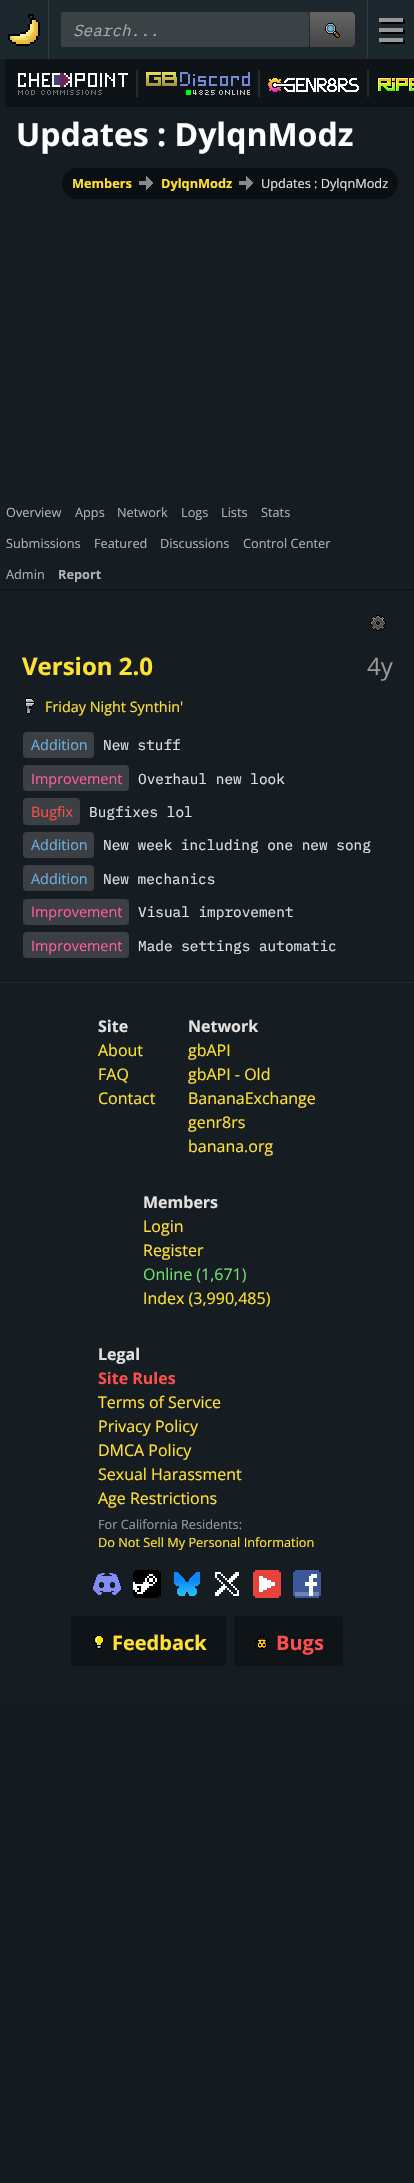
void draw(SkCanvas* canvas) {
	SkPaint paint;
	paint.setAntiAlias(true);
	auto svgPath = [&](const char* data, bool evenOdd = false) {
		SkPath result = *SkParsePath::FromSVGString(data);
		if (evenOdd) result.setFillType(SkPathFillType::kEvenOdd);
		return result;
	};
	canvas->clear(0xff131a20);
	paint.setColor(0xff1c272e);
	canvas->drawRect(SkRect::MakeXYWH(0, 0, 414, 59), paint);
	paint.setColor(0xff151d23);
	canvas->drawRect(SkRect::MakeXYWH(0, 59, 9, 1), paint);
	canvas->drawImageRect(SkImages::DeferredFromEncodedData(SkData::MakeFromFileName("img1.png")), SkRect::MakeXYWH(8, 14, 32, 32), SkSamplingOptions());
	paint.setColor(0xff333d43);
	canvas->drawRect(SkRect::MakeXYWH(48, 0, 1, 59), paint);
	paint.setColor(0xff3a4246);
	canvas->drawRoundRect(SkRect::MakeXYWH(61, 12, 248, 35), 2, 2, paint);
	SkFont f1(fontMgr->matchFamilyStyle("IBM Plex Mono", SkFontStyle::Italic()), 16);
	f1.setSubpixel(true);
	paint.setColor(0xffa6aaac);
	canvas->drawString("Search...", 73, 36, f1, paint);
	{
		const SkColor colors[] = {0xff666666, 0xff444444};
		const float stops[] = {0, 1};
		const SkPoint ends[] = {{333, 12}, {333, 47}};
		paint.setShader(SkGradientShader::MakeLinear(ends, colors, stops, 2, SkTileMode::kClamp));
		paint.setAlpha(255);
	}
	canvas->drawPath(svgPath("M309 12H351C353 12 355 14 355 16V43C355 45 353 47 351 47H309Z"), paint);
	{
		const SkColor colors[] = {0xff333333, 0xff222222};
		const float stops[] = {0, 1};
		const SkPoint ends[] = {{333, 12}, {333, 47}};
		paint.setShader(SkGradientShader::MakeLinear(ends, colors, stops, 2, SkTileMode::kClamp));
		paint.setAlpha(255);
	}
	canvas->drawRect(SkRect::MakeXYWH(309, 12, 1, 35), paint);
	canvas->drawImageRect(SkImages::DeferredFromEncodedData(SkData::MakeFromFileName("img2.png")), SkRect::MakeXYWH(325, 23, 15, 15), SkSamplingOptions());
	paint.setShader(nullptr);
	paint.setColor(0xff333d43);
	canvas->drawRect(SkRect::MakeXYWH(367, 1, 1, 57), paint);
	canvas->drawImageRect(SkImages::DeferredFromEncodedData(SkData::MakeFromFileName("img3.png")), SkRect::MakeXYWH(379, 18, 26, 26), SkSamplingOptions());
	paint.setColor(0xff151d23);
	canvas->drawRect(SkRect::MakeXYWH(0, 60, 414, 922), paint);
	SkFont f2(fontMgr->matchFamilyStyle("Open Sans", SkFontStyle::Bold()), 32);
	f2.setSubpixel(true);
	paint.setColor(0xffffffff);
	canvas->drawString("Updates : DylqnModz", 16, 146, f2, paint);
	paint.setColor(0xff0b0f12);
	canvas->drawRoundRect(SkRect::MakeXYWH(62, 168, 336, 31), 15.5, 15.5, paint);
	SkFont f3(fontMgr->matchFamilyStyle("Open Sans", SkFontStyle::Bold()), 12.75);
	f3.setSubpixel(true);
	paint.setColor(0xffffe033);
	canvas->drawString("Members", 72, 188, f3, paint);
	canvas->drawImageRect(SkImages::DeferredFromEncodedData(SkData::MakeFromFileName("img4.png")), SkRect::MakeXYWH(139, 176, 14, 14), SkSamplingOptions());
	canvas->drawString("DylqnModz", 161, 188, f3, paint);
	canvas->drawImageRect(SkImages::DeferredFromEncodedData(SkData::MakeFromFileName("img4.png")), SkRect::MakeXYWH(239, 176, 14, 14), SkSamplingOptions());
	SkFont f4(fontMgr->matchFamilyStyle("Open Sans", SkFontStyle::Normal()), 12.75);
	f4.setSubpixel(true);
	paint.setColor(0xffe2e2e2);
	canvas->drawString("Updates : DylqnModz", 261, 188, f4, paint);
	paint.setColor(0xff0e1317);
	canvas->drawRect(SkRect::MakeXYWH(0, 589, 414, 1), paint);
	paint.setColor(0xffafb1b2);
	canvas->drawString("Overview", 6, 517, f4, paint);
	canvas->drawString("Apps", 75, 517, f4, paint);
	canvas->drawString("Network", 117, 517, f4, paint);
	canvas->drawString("Logs", 181, 517, f4, paint);
	canvas->drawString("Lists", 221, 517, f4, paint);
	canvas->drawString("Stats", 261, 517, f4, paint);
	canvas->drawString("Submissions", 6, 548, f4, paint);
	canvas->drawString("Featured", 94, 548, f4, paint);
	canvas->drawString("Discussions", 160, 548, f4, paint);
	canvas->drawString("Control Center", 243, 548, f4, paint);
	canvas->drawString("Admin", 6, 579, f4, paint);
	canvas->drawString("Report", 58, 579, f3, paint);
	paint.setColor(0xff21282e);
	canvas->drawRect(SkRect::MakeXYWH(0, 982, 414, 1), paint);
	canvas->drawImageRect(SkImages::DeferredFromEncodedData(SkData::MakeFromFileName("img5.png")), SkRect::MakeXYWH(370, 615, 16, 16), SkSamplingOptions());
	SkFont f5(fontMgr->matchFamilyStyle("Open Sans", SkFontStyle::Bold()), 24);
	f5.setSubpixel(true);
	paint.setColor(0xffffe033);
	canvas->drawString("Version 2.0", 22, 675, f5, paint);
	SkFont f6(fontMgr->matchFamilyStyle("Open Sans", SkFontStyle::Normal()), 24);
	f6.setSubpixel(true);
	paint.setColor(0xff999999);
	canvas->drawString("4y", 367, 675, f6, paint);
	canvas->drawImageRect(SkImages::DeferredFromEncodedData(SkData::MakeFromFileName("img6.png")), SkRect::MakeXYWH(25, 698, 10, 16), SkSamplingOptions());
	SkFont f7(fontMgr->matchFamilyStyle("Open Sans", SkFontStyle::Normal()), 14.4);
	f7.setSubpixel(true);
	paint.setColor(0xffffe033);
	canvas->drawString("Friday Night Synthin'", 45, 712, f7, paint);
	paint.setColor(0xff3c4044);
	canvas->drawRoundRect(SkRect::MakeXYWH(23, 732, 71, 26), 4, 4, paint);
	paint.setColor(0xff6cb1e1);
	canvas->drawString("Addition", 31, 750, f7, paint);
	SkFont f8(fontMgr->matchFamilyStyle("IBM Plex Mono", SkFontStyle::Normal()), 14.4);
	f8.setSubpixel(true);
	paint.setColor(0xffe2e2e2);
	canvas->drawString("New stuff", 103, 750, f8, paint);
	paint.setColor(0xff3c4044);
	canvas->drawRoundRect(SkRect::MakeXYWH(23, 765, 106, 26), 4, 4, paint);
	paint.setColor(0xffff5e9d);
	canvas->drawString("Improvement", 31, 784, f7, paint);
	paint.setColor(0xffe2e2e2);
	canvas->drawString("Overhaul new look", 138, 784, f8, paint);
	paint.setColor(0xff3c4044);
	canvas->drawRoundRect(SkRect::MakeXYWH(23, 798, 57, 27), 4, 4, paint);
	paint.setColor(0xffff4e4e);
	canvas->drawString("Bugfix", 31, 817, f7, paint);
	paint.setColor(0xffe2e2e2);
	canvas->drawString("Bugfixes lol", 89, 817, f8, paint);
	paint.setColor(0xff3c4044);
	canvas->drawRoundRect(SkRect::MakeXYWH(23, 832, 71, 26), 4, 4, paint);
	paint.setColor(0xff6cb1e1);
	canvas->drawString("Addition", 31, 850, f7, paint);
	paint.setColor(0xffe2e2e2);
	canvas->drawString("New week including one new song", 103, 850, f8, paint);
	paint.setColor(0xff3c4044);
	canvas->drawRoundRect(SkRect::MakeXYWH(23, 865, 71, 26), 4, 4, paint);
	paint.setColor(0xff6cb1e1);
	canvas->drawString("Addition", 31, 884, f7, paint);
	paint.setColor(0xffe2e2e2);
	canvas->drawString("New mechanics", 103, 884, f8, paint);
	paint.setColor(0xff3c4044);
	canvas->drawRoundRect(SkRect::MakeXYWH(23, 899, 106, 26), 4, 4, paint);
	paint.setColor(0xffff5e9d);
	canvas->drawString("Improvement", 31, 917, f7, paint);
	paint.setColor(0xffe2e2e2);
	canvas->drawString("Visual improvement", 138, 917, f8, paint);
	paint.setColor(0xff3c4044);
	canvas->drawRoundRect(SkRect::MakeXYWH(23, 932, 106, 26), 4, 4, paint);
	paint.setColor(0xffff5e9d);
	canvas->drawString("Improvement", 31, 951, f7, paint);
	paint.setColor(0xffe2e2e2);
	canvas->drawString("Made settings automatic", 138, 951, f8, paint);
	paint.setColor(0xff151d23);
	canvas->drawRect(SkRect::MakeXYWH(0, 983, 414, 719), paint);
	SkFont f9(fontMgr->matchFamilyStyle("Open Sans", SkFontStyle::Bold()), 16);
	f9.setSubpixel(true);
	paint.setColor(0xffe2e2e2);
	canvas->drawString("Site", 98, 1032, f9, paint);
	SkFont f10(fontMgr->matchFamilyStyle("Open Sans", SkFontStyle::Normal()), 16);
	f10.setSubpixel(true);
	paint.setColor(0xffffe033);
	canvas->drawString("About", 98, 1056, f10, paint);
	canvas->drawString("FAQ", 98, 1080, f10, paint);
	canvas->drawString("Contact", 98, 1104, f10, paint);
	paint.setColor(0xffe2e2e2);
	canvas->drawString("Network", 188, 1032, f9, paint);
	paint.setColor(0xffffe033);
	canvas->drawString("gbAPI", 188, 1056, f10, paint);
	canvas->drawString("gbAPI - Old", 188, 1080, f10, paint);
	canvas->drawString("BananaExchange", 188, 1104, f10, paint);
	canvas->drawString("genr8rs", 188, 1128, f10, paint);
	canvas->drawString("banana.org", 188, 1152, f10, paint);
	paint.setColor(0xffe2e2e2);
	canvas->drawString("Members", 143, 1208, f9, paint);
	paint.setColor(0xffffe033);
	canvas->drawString("Login", 143, 1232, f10, paint);
	canvas->drawString("Register", 143, 1256, f10, paint);
	paint.setColor(0xff6ee16c);
	canvas->drawString("Online (1,671)", 143, 1280, f10, paint);
	paint.setColor(0xffffe033);
	canvas->drawString("Index (3,990,485)", 143, 1304, f10, paint);
	paint.setColor(0xffe2e2e2);
	canvas->drawString("Legal", 98, 1360, f9, paint);
	paint.setColor(0xffff4e4e);
	canvas->drawString("Site Rules", 98, 1384, f9, paint);
	paint.setColor(0xffffe033);
	canvas->drawString("Terms of Service", 98, 1408, f10, paint);
	canvas->drawString("Privacy Policy", 98, 1432, f10, paint);
	canvas->drawString("DMCA Policy", 98, 1456, f10, paint);
	canvas->drawString("Sexual Harassment", 98, 1480, f10, paint);
	canvas->drawString("Age Restrictions", 98, 1504, f10, paint);
	paint.setColor(0xff999999);
	canvas->drawString("For California Residents:", 98, 1529, f4, paint);
	paint.setColor(0xffffe033);
	canvas->drawString("Do Not Sell My Personal Information", 98, 1547, f4, paint);
	canvas->drawImageRect(SkImages::DeferredFromEncodedData(SkData::MakeFromFileName("img7.png")), SkRect::MakeXYWH(93, 1573, 28, 22), SkSamplingOptions());
	canvas->drawImageRect(SkImages::DeferredFromEncodedData(SkData::MakeFromFileName("img8.png")), SkRect::MakeXYWH(133, 1570, 28, 28), SkSamplingOptions());
	canvas->drawImageRect(SkImages::DeferredFromEncodedData(SkData::MakeFromFileName("img9.png")), SkRect::MakeXYWH(174, 1572, 26, 24), SkSamplingOptions());
	canvas->drawImageRect(SkImages::DeferredFromEncodedData(SkData::MakeFromFileName("img10.png")), SkRect::MakeXYWH(215, 1572, 24, 24), SkSamplingOptions());
	canvas->drawImageRect(SkImages::DeferredFromEncodedData(SkData::MakeFromFileName("img11.png")), SkRect::MakeXYWH(253, 1570, 28, 28), SkSamplingOptions());
	canvas->drawImageRect(SkImages::DeferredFromEncodedData(SkData::MakeFromFileName("img12.png")), SkRect::MakeXYWH(293, 1570, 28, 28), SkSamplingOptions());
	paint.setColor(0xff0f1419);
	canvas->drawRoundRect(SkRect::MakeXYWH(71, 1616, 155, 50), 2.5, 2.5, paint);
	canvas->drawImageRect(SkImages::DeferredFromEncodedData(SkData::MakeFromFileName("img13.png")), SkRect::MakeXYWH(94, 1635, 10, 14), SkSamplingOptions());
	SkFont f11(fontMgr->matchFamilyStyle("Open Sans", SkFontStyle::Bold()), 20);
	f11.setSubpixel(true);
	paint.setColor(0xffffe033);
	canvas->drawString("Feedback", 112, 1650, f11, paint);
	paint.setColor(0xff0f1419);
	canvas->drawRoundRect(SkRect::MakeXYWH(234, 1616, 109, 50), 2.5, 2.5, paint);
	canvas->drawImageRect(SkImages::DeferredFromEncodedData(SkData::MakeFromFileName("img14.png")), SkRect::MakeXYWH(255, 1635, 14, 14), SkSamplingOptions());
	paint.setColor(0xffff4e4e);
	canvas->drawString("Bugs", 276, 1650, f11, paint);
	paint.setColor(0xff0e1317);
	canvas->drawRoundRect(SkRect::MakeXYWH(5, 59, 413, 48), 4, 4, paint);
	canvas->drawImageRect(SkImages::DeferredFromEncodedData(SkData::MakeFromFileName("img15.png")), SkRect::MakeXYWH(18, 73, 110, 22), SkSamplingOptions());
	paint.setColor(0xff262b2e);
	canvas->drawRect(SkRect::MakeXYWH(136, 70, 2, 27), paint);
	canvas->drawImageRect(SkImages::DeferredFromEncodedData(SkData::MakeFromFileName("img16.png")), SkRect::MakeXYWH(146, 72, 104, 14), SkSamplingOptions());
	paint.setColor(0xff00ff03);
	canvas->drawRect(SkRect::MakeXYWH(186, 90, 5, 5), paint);
	canvas->drawImageRect(SkImages::DeferredFromEncodedData(SkData::MakeFromFileName("img17.png")), SkRect::MakeXYWH(193, 90, 4, 5), SkSamplingOptions());
	canvas->drawImageRect(SkImages::DeferredFromEncodedData(SkData::MakeFromFileName("img18.png")), SkRect::MakeXYWH(199, 90, 4, 5), SkSamplingOptions());
	canvas->drawImageRect(SkImages::DeferredFromEncodedData(SkData::MakeFromFileName("img19.png")), SkRect::MakeXYWH(205, 90, 4, 5), SkSamplingOptions());
	canvas->drawImageRect(SkImages::DeferredFromEncodedData(SkData::MakeFromFileName("img20.png")), SkRect::MakeXYWH(211, 90, 4, 5), SkSamplingOptions());
	canvas->drawImageRect(SkImages::DeferredFromEncodedData(SkData::MakeFromFileName("img21.png")), SkRect::MakeXYWH(219, 90, 31, 5), SkSamplingOptions());
	paint.setColor(0xff262b2e);
	canvas->drawRect(SkRect::MakeXYWH(258, 70, 2, 27), paint);
	canvas->drawImageRect(SkImages::DeferredFromEncodedData(SkData::MakeFromFileName("img22.png")), SkRect::MakeXYWH(268, 78, 91, 14), SkSamplingOptions());
	canvas->drawRect(SkRect::MakeXYWH(367, 70, 2, 27), paint);
	canvas->drawImageRect(SkImages::DeferredFromEncodedData(SkData::MakeFromFileName("img23.png")), SkRect::MakeXYWH(377, 77, 37, 15), SkSamplingOptions());
}
